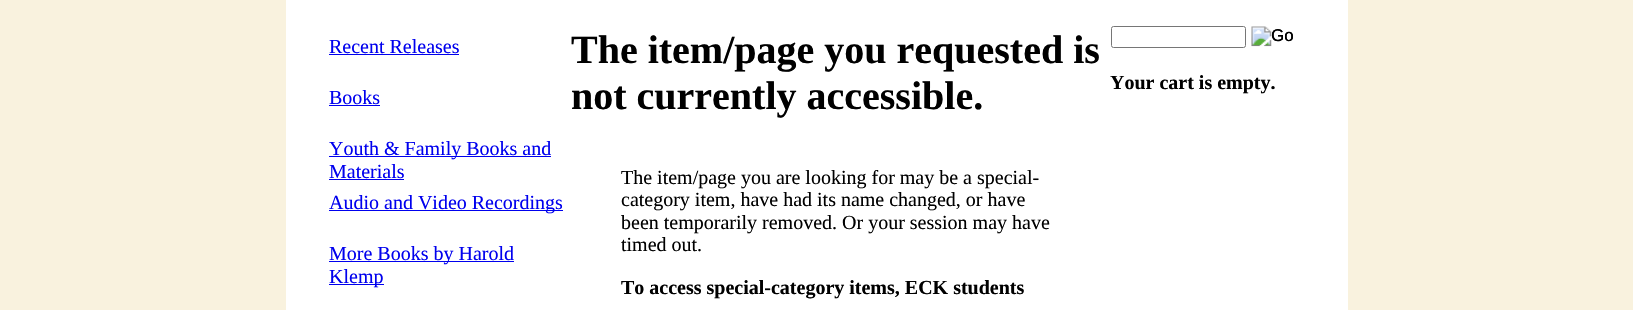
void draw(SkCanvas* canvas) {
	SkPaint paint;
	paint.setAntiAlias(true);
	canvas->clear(0xfff9f2de);
	paint.setColor(0xffffffff);
	canvas->drawRect(SkRect::MakeXYWH(286, 0, 1062, 310), paint);
	SkFont f1(fontMgr->matchFamilyStyle("Liberation Serif", SkFontStyle::Normal()), 20);
	f1.setSubpixel(true);
	paint.setColor(0xff0000ee);
	canvas->drawString("Recent Releases", 329, 53, f1, paint);
	canvas->drawRect(SkRect::MakeXYWH(329, 54, 130, 1), paint);
	canvas->drawString("Books", 329, 104, f1, paint);
	canvas->drawRect(SkRect::MakeXYWH(329, 105, 51, 1), paint);
	canvas->drawRect(SkRect::MakeXYWH(329, 156, 222, 1), paint);
	canvas->drawString("Youth & Family Books and", 329, 155, f1, paint);
	canvas->drawString("Materials", 329, 178, f1, paint);
	canvas->drawRect(SkRect::MakeXYWH(329, 179, 75, 1), paint);
	canvas->drawRect(SkRect::MakeXYWH(329, 210, 234, 1), paint);
	canvas->drawString("Audio and Video Recordings", 329, 209, f1, paint);
	canvas->drawRect(SkRect::MakeXYWH(329, 261, 185, 1), paint);
	canvas->drawString("More Books by Harold", 329, 260, f1, paint);
	canvas->drawRect(SkRect::MakeXYWH(329, 284, 55, 1), paint);
	canvas->drawString("Klemp", 329, 283, f1, paint);
	SkFont f2(fontMgr->matchFamilyStyle("Liberation Serif", SkFontStyle::Bold()), 40);
	f2.setSubpixel(true);
	paint.setColor(0xff000000);
	canvas->drawString("The item/page you requested is", 571, 63, f2, paint);
	canvas->drawString("not currently accessible.", 571, 109, f2, paint);
	canvas->drawString("The item/page you are looking for may be a special-", 621, 184, f1, paint);
	canvas->drawString("category item, have had its name changed, or have", 621, 206, f1, paint);
	canvas->drawString("been temporarily removed. Or your session may have", 621, 229, f1, paint);
	canvas->drawString("timed out.", 621, 251, f1, paint);
	SkFont f3(fontMgr->matchFamilyStyle("Liberation Serif", SkFontStyle::Bold()), 20);
	f3.setSubpixel(true);
	canvas->drawString("To access special-category items, ECK students", 621, 294, f3, paint);
	paint.setStroke(true);
	paint.setStrokeWidth(1);
	paint.setColor(0xff767676);
	canvas->drawRoundRect(SkRect::MakeXYWH(1111.5, 26.5, 134, 21), 2, 2, paint);
	canvas->drawImageRect(SkImages::DeferredFromEncodedData(SkData::MakeFromFileName("img1.png")), SkRect::MakeXYWH(1251, 26, 42, 21), SkSamplingOptions());
	SkFont f4(fontMgr->matchFamilyStyle("Liberation Sans", SkFontStyle::Normal()), 17);
	f4.setSubpixel(true);
	paint.setStroke(false);
	paint.setColor(0xff000000);
	canvas->drawString("Go", 1271, 41, f4, paint);
	canvas->drawString("Your cart is empty.", 1110, 89, f3, paint);
}
